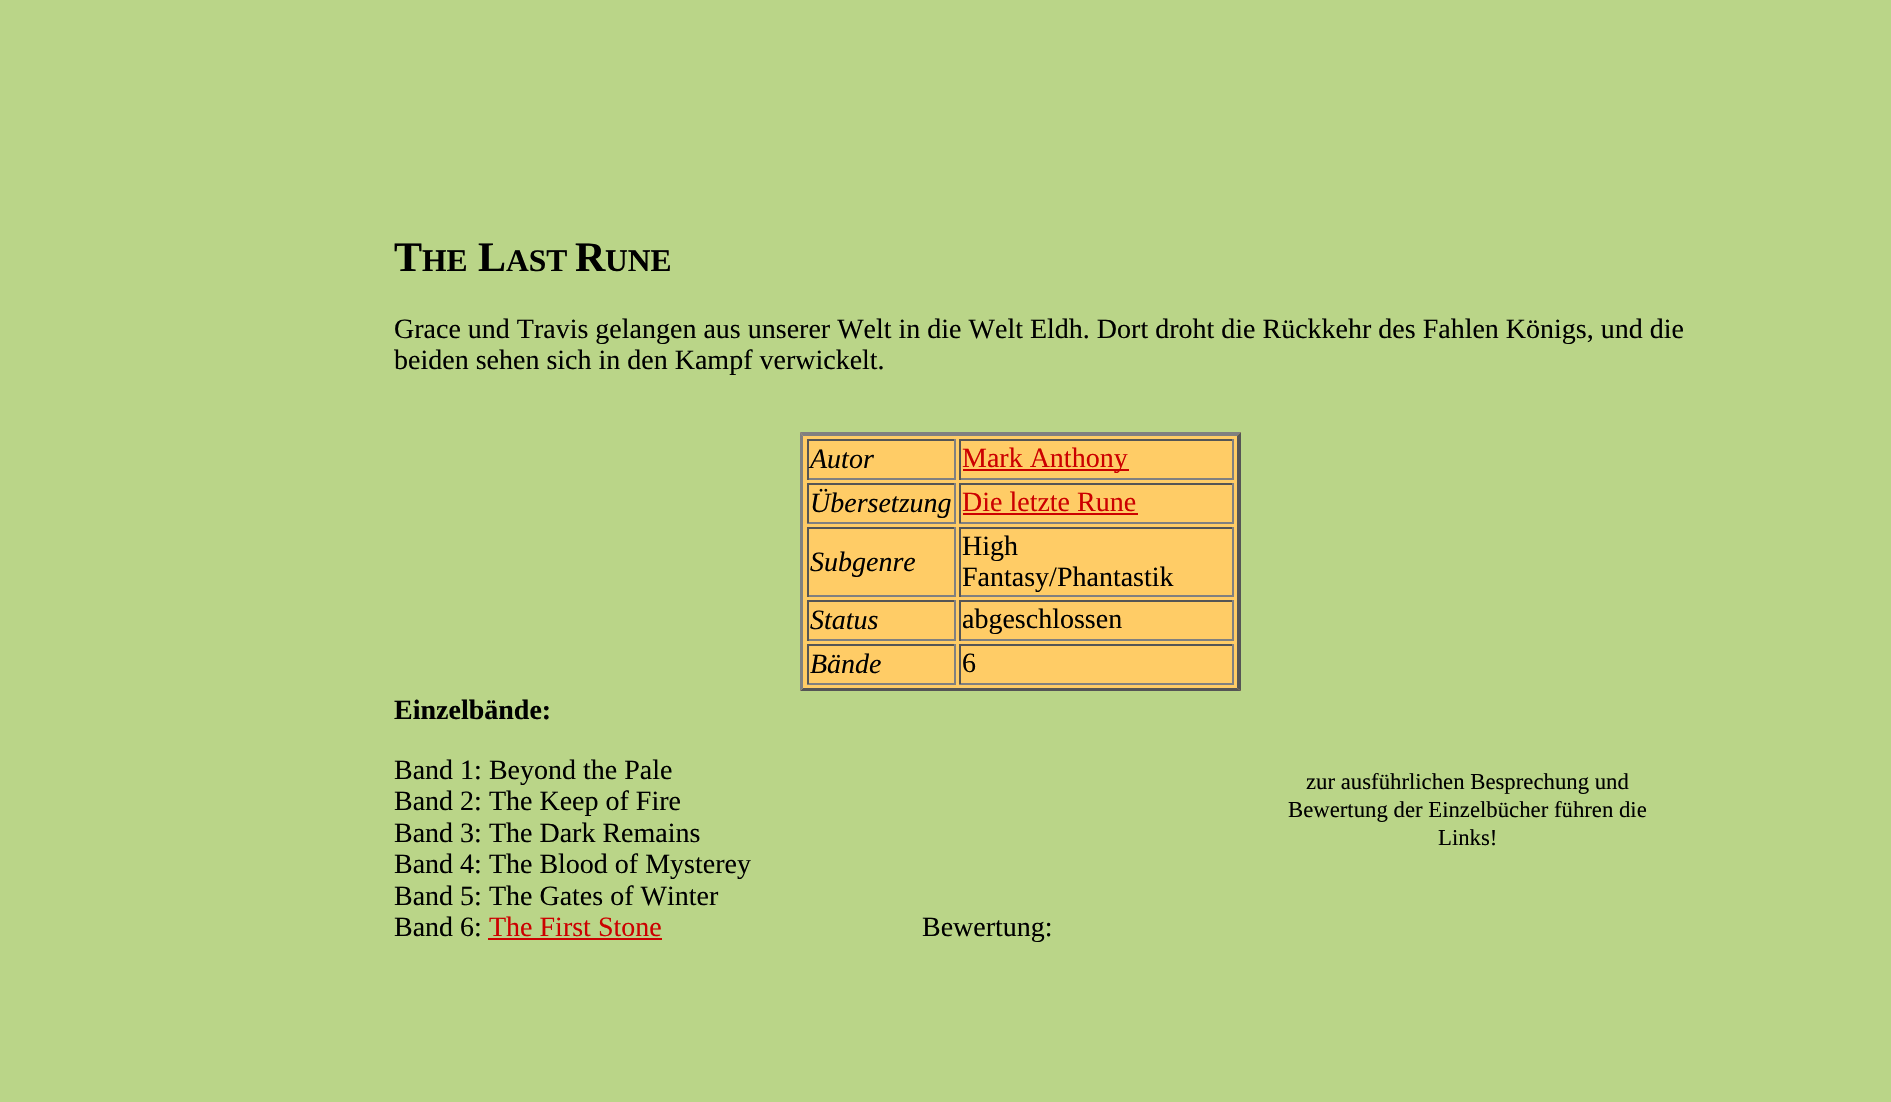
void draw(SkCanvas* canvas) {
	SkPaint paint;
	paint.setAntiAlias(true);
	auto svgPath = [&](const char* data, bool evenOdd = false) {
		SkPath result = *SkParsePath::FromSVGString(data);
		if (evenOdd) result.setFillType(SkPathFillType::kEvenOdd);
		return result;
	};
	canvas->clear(0xffbad588);
	SkFont f1(fontMgr->matchFamilyStyle("Liberation Serif", SkFontStyle::Bold()), 42);
	f1.setSubpixel(true);
	paint.setColor(0xff000000);
	canvas->drawString("T", 394, 271, f1, paint);
	SkFont f2(fontMgr->matchFamilyStyle("Liberation Serif", SkFontStyle::Bold()), 31.5);
	f2.setSubpixel(true);
	canvas->drawString("HE", 422, 271, f2, paint);
	canvas->drawString("L", 478, 271, f1, paint);
	canvas->drawString("AST", 506, 271, f2, paint);
	canvas->drawString("R", 575, 271, f1, paint);
	canvas->drawString("UNE", 605, 271, f2, paint);
	SkFont f3(fontMgr->matchFamilyStyle("Liberation Serif", SkFontStyle::Normal()), 28);
	f3.setSubpixel(true);
	canvas->drawString("Grace und Travis gelangen aus unserer Welt in die Welt Eldh. Dort droht die Rückkehr des Fahlen Königs, und die", 394, 338, f3, paint);
	canvas->drawString("beiden sehen sich in den Kampf verwickelt.", 394, 369, f3, paint);
	paint.setColor(0xffffcc66);
	canvas->drawRect(SkRect::MakeXYWH(800, 432, 441, 259), paint);
	paint.setColor(0xff808080);
	canvas->drawPath(svgPath("M800 432H1241L1237 436H803Z"), paint);
	paint.setColor(0xff555555);
	canvas->drawPath(svgPath("M1241 432V691L1237 688V436Z"), paint);
	canvas->drawPath(svgPath("M1241 691H800L803 688H1237Z"), paint);
	paint.setColor(0xff808080);
	canvas->drawPath(svgPath("M800 691V432L803 436V688Z"), paint);
	paint.setColor(0xff555555);
	canvas->drawRect(SkRect::MakeXYWH(807, 439, 149, 2), paint);
	paint.setColor(0xff808080);
	canvas->drawRect(SkRect::MakeXYWH(954, 439, 2, 41), paint);
	canvas->drawRect(SkRect::MakeXYWH(807, 478, 149, 2), paint);
	paint.setColor(0xff555555);
	canvas->drawRect(SkRect::MakeXYWH(807, 439, 2, 41), paint);
	SkFont f4(fontMgr->matchFamilyStyle("Liberation Serif", SkFontStyle::Italic()), 28);
	f4.setSubpixel(true);
	paint.setColor(0xff000000);
	canvas->drawString("Autor", 810, 468, f4, paint);
	paint.setColor(0xff555555);
	canvas->drawRect(SkRect::MakeXYWH(959, 439, 275, 2), paint);
	paint.setColor(0xff808080);
	canvas->drawRect(SkRect::MakeXYWH(1232, 439, 2, 41), paint);
	canvas->drawRect(SkRect::MakeXYWH(959, 478, 275, 2), paint);
	paint.setColor(0xff555555);
	canvas->drawRect(SkRect::MakeXYWH(959, 439, 2, 41), paint);
	paint.setColor(0xffcc0000);
	canvas->drawRect(SkRect::MakeXYWH(963, 469, 166, 2), paint);
	canvas->drawString("Mark Anthony", 962, 467, f3, paint);
	paint.setColor(0xff555555);
	canvas->drawRect(SkRect::MakeXYWH(807, 483, 149, 2), paint);
	paint.setColor(0xff808080);
	canvas->drawRect(SkRect::MakeXYWH(954, 483, 2, 40), paint);
	canvas->drawRect(SkRect::MakeXYWH(807, 522, 149, 2), paint);
	paint.setColor(0xff555555);
	canvas->drawRect(SkRect::MakeXYWH(807, 483, 2, 40), paint);
	paint.setColor(0xff000000);
	canvas->drawString("Übersetzung", 810, 512, f4, paint);
	paint.setColor(0xff555555);
	canvas->drawRect(SkRect::MakeXYWH(959, 483, 275, 2), paint);
	paint.setColor(0xff808080);
	canvas->drawRect(SkRect::MakeXYWH(1232, 483, 2, 40), paint);
	canvas->drawRect(SkRect::MakeXYWH(959, 522, 275, 2), paint);
	paint.setColor(0xff555555);
	canvas->drawRect(SkRect::MakeXYWH(959, 483, 2, 40), paint);
	paint.setColor(0xffcc0000);
	canvas->drawString("Die letzte Rune", 962, 511, f3, paint);
	canvas->drawRect(SkRect::MakeXYWH(963, 513, 175, 2), paint);
	paint.setColor(0xff555555);
	canvas->drawRect(SkRect::MakeXYWH(807, 527, 149, 2), paint);
	paint.setColor(0xff808080);
	canvas->drawRect(SkRect::MakeXYWH(954, 527, 2, 70), paint);
	canvas->drawRect(SkRect::MakeXYWH(807, 595, 149, 2), paint);
	paint.setColor(0xff555555);
	canvas->drawRect(SkRect::MakeXYWH(807, 527, 2, 70), paint);
	paint.setColor(0xff000000);
	canvas->drawString("Subgenre", 810, 571, f4, paint);
	paint.setColor(0xff555555);
	canvas->drawRect(SkRect::MakeXYWH(959, 527, 275, 2), paint);
	paint.setColor(0xff808080);
	canvas->drawRect(SkRect::MakeXYWH(1232, 527, 2, 70), paint);
	canvas->drawRect(SkRect::MakeXYWH(959, 595, 275, 2), paint);
	paint.setColor(0xff555555);
	canvas->drawRect(SkRect::MakeXYWH(959, 527, 2, 70), paint);
	paint.setColor(0xff000000);
	canvas->drawString("High", 962, 555, f3, paint);
	canvas->drawString("Fantasy/Phantastik", 962, 586, f3, paint);
	paint.setColor(0xff555555);
	canvas->drawRect(SkRect::MakeXYWH(807, 600, 149, 2), paint);
	paint.setColor(0xff808080);
	canvas->drawRect(SkRect::MakeXYWH(954, 600, 2, 41), paint);
	canvas->drawRect(SkRect::MakeXYWH(807, 639, 149, 2), paint);
	paint.setColor(0xff555555);
	canvas->drawRect(SkRect::MakeXYWH(807, 600, 2, 41), paint);
	paint.setColor(0xff000000);
	canvas->drawString("Status", 810, 629, f4, paint);
	paint.setColor(0xff555555);
	canvas->drawRect(SkRect::MakeXYWH(959, 600, 275, 2), paint);
	paint.setColor(0xff808080);
	canvas->drawRect(SkRect::MakeXYWH(1232, 600, 2, 41), paint);
	canvas->drawRect(SkRect::MakeXYWH(959, 639, 275, 2), paint);
	paint.setColor(0xff555555);
	canvas->drawRect(SkRect::MakeXYWH(959, 600, 2, 41), paint);
	paint.setColor(0xff000000);
	canvas->drawString("abgeschlossen", 962, 628, f3, paint);
	paint.setColor(0xff555555);
	canvas->drawRect(SkRect::MakeXYWH(807, 644, 149, 2), paint);
	paint.setColor(0xff808080);
	canvas->drawRect(SkRect::MakeXYWH(954, 644, 2, 40), paint);
	canvas->drawRect(SkRect::MakeXYWH(807, 683, 149, 2), paint);
	paint.setColor(0xff555555);
	canvas->drawRect(SkRect::MakeXYWH(807, 644, 2, 40), paint);
	paint.setColor(0xff000000);
	canvas->drawString("Bände", 810, 673, f4, paint);
	paint.setColor(0xff555555);
	canvas->drawRect(SkRect::MakeXYWH(959, 644, 275, 2), paint);
	paint.setColor(0xff808080);
	canvas->drawRect(SkRect::MakeXYWH(1232, 644, 2, 40), paint);
	canvas->drawRect(SkRect::MakeXYWH(959, 683, 275, 2), paint);
	paint.setColor(0xff555555);
	canvas->drawRect(SkRect::MakeXYWH(959, 644, 2, 40), paint);
	paint.setColor(0xff000000);
	canvas->drawString("6", 962, 672, f3, paint);
	SkFont f5(fontMgr->matchFamilyStyle("Liberation Serif", SkFontStyle::Bold()), 28);
	f5.setSubpixel(true);
	canvas->drawString("Einzelbände:", 394, 719, f5, paint);
	canvas->drawString("Band 1: Beyond the Pale", 394, 779, f3, paint);
	canvas->drawString("Band 2: The Keep of Fire", 394, 810, f3, paint);
	canvas->drawString("Band 3: The Dark Remains", 394, 842, f3, paint);
	canvas->drawString("Band 4: The Blood of Mysterey", 394, 873, f3, paint);
	canvas->drawString("Band 5: The Gates of Winter", 394, 905, f3, paint);
	canvas->drawString("Band 6:", 394, 936, f3, paint);
	paint.setColor(0xffcc0000);
	canvas->drawString("The First Stone", 489, 936, f3, paint);
	canvas->drawRect(SkRect::MakeXYWH(488, 938, 174, 2), paint);
	paint.setColor(0xff000000);
	canvas->drawString("Bewertung:", 922, 936, f3, paint);
	SkFont f6(fontMgr->matchFamilyStyle("Liberation Serif", SkFontStyle::Normal()), 22.75);
	f6.setSubpixel(true);
	canvas->drawString("zur ausführlichen Besprechung und", 1306, 789, f6, paint);
	canvas->drawString("Bewertung der Einzelbücher führen die", 1288, 817, f6, paint);
	canvas->drawString("Links!", 1438, 845, f6, paint);
}
